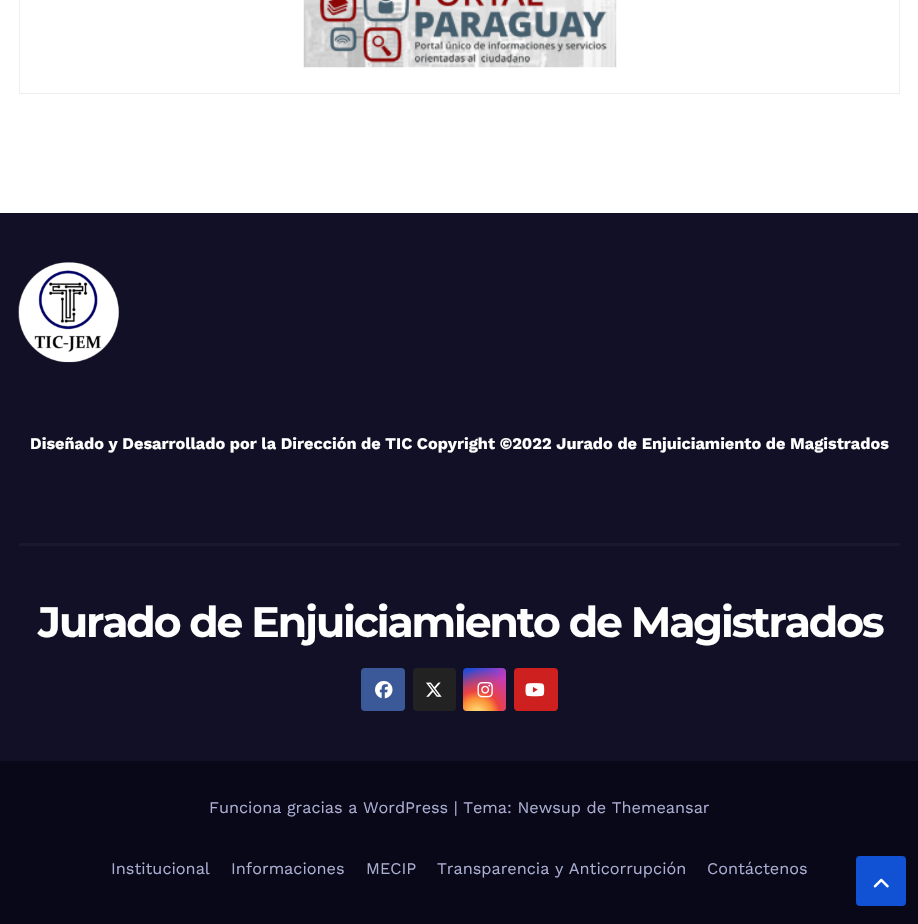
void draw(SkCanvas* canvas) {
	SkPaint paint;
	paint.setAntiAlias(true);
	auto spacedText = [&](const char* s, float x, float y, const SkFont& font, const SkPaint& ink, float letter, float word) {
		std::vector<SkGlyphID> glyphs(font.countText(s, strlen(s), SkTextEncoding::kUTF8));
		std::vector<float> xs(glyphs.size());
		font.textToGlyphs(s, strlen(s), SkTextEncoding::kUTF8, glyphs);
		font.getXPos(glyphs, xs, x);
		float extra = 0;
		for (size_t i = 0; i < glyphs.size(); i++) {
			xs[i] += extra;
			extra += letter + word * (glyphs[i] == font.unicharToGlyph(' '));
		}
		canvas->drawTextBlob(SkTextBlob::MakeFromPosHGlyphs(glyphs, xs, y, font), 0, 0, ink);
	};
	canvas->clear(0xffffffff);
	paint.setStroke(true);
	paint.setStrokeWidth(1);
	paint.setColor(0xffeeeeee);
	canvas->drawRect(SkRect::MakeXYWH(19.5, -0.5, 880, 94), paint);
	canvas->drawImageRect(SkImages::DeferredFromEncodedData(SkData::MakeFromFileName("img1.png")), SkRect::MakeXYWH(303, 0, 314, 68), SkSamplingOptions());
	paint.setStroke(false);
	paint.setColor(0xff121026);
	canvas->drawRect(SkRect::MakeXYWH(0, 213, 918, 548), paint);
	canvas->drawImageRect(SkImages::DeferredFromEncodedData(SkData::MakeFromFileName("img2.png")), SkRect::MakeXYWH(18, 262, 101, 101), SkSamplingOptions());
	SkFont f1(fontMgr->matchFamilyStyle("Work Sans", SkFontStyle::Bold()), 16.25);
	f1.setSubpixel(true);
	paint.setColor(0xffffffff);
	canvas->drawString("Diseñado y Desarrollado por la Dirección de TIC Copyright ©2022 Jurado de Enjuiciamiento de Magistrados", 30, 449, f1, paint);
	paint.setColor(0xff1a182e);
	canvas->drawRect(SkRect::MakeXYWH(19, 543, 881, 3), paint);
	SkFont f2(fontMgr->matchFamilyStyle("Montserrat", SkFontStyle::Bold()), 42.5);
	f2.setSubpixel(true);
	paint.setColor(0xffffffff);
	spacedText("Jurado de Enjuiciamiento de Magistrados", 38, 637, f2, paint, -2.1, 0);
	paint.setColor(0xff3b5998);
	canvas->drawRoundRect(SkRect::MakeXYWH(361, 668, 44, 43), 4, 4, paint);
	canvas->drawImageRect(SkImages::DeferredFromEncodedData(SkData::MakeFromFileName("img3.png")), SkRect::MakeXYWH(375, 680, 18, 19), SkSamplingOptions());
	paint.setColor(0xff222222);
	canvas->drawRoundRect(SkRect::MakeXYWH(413, 668, 43, 43), 4, 4, paint);
	canvas->drawImageRect(SkImages::DeferredFromEncodedData(SkData::MakeFromFileName("img4.png")), SkRect::MakeXYWH(426, 682, 16, 15), SkSamplingOptions());
	{
		const SkColor colors[] = {0xff234bd7, 0xffc33cbe};
		const float stops[] = {0.12, 0.58};
		const SkPoint ends[] = {{463, 668}, {506, 711}};
		paint.setShader(SkGradientShader::MakeLinear(ends, colors, stops, 2, SkTileMode::kClamp));
		paint.setAlpha(255);
	}
	canvas->drawRoundRect(SkRect::MakeXYWH(463, 668, 43, 43), 4, 4, paint);
	{
		const SkColor colors[] = {0xffffe17d, 0xffffcd69, 0xfffa9137, 0xffeb4141, 0x00eb4141};
		const float stops[] = {0, 0.1, 0.28, 0.42, 0.82};
		paint.setShader(SkGradientShader::MakeRadial({477, 714}, 55, colors, stops, 5, SkTileMode::kClamp));
		paint.setAlpha(255);
	}
	canvas->drawRoundRect(SkRect::MakeXYWH(463, 668, 43, 43), 4, 4, paint);
	canvas->drawImageRect(SkImages::DeferredFromEncodedData(SkData::MakeFromFileName("img5.png")), SkRect::MakeXYWH(477, 682, 16, 16), SkSamplingOptions());
	paint.setShader(nullptr);
	paint.setColor(0xffcd201f);
	canvas->drawRoundRect(SkRect::MakeXYWH(514, 668, 44, 43), 4, 4, paint);
	canvas->drawImageRect(SkImages::DeferredFromEncodedData(SkData::MakeFromFileName("img6.png")), SkRect::MakeXYWH(525, 683, 20, 14), SkSamplingOptions());
	paint.setColor(0xff090818);
	canvas->drawRect(SkRect::MakeXYWH(0, 761, 918, 163), paint);
	SkFont f3(fontMgr->matchFamilyStyle("Work Sans", SkFontStyle::Normal()), 16.25);
	f3.setSubpixel(true);
	paint.setColor(0xffaaaed1);
	canvas->drawString("Funciona gracias a WordPress | Tema: Newsup de Themeansar", 209, 813, f3, paint);
	canvas->drawString("Institucional", 111, 874, f3, paint);
	canvas->drawString("Informaciones", 231, 874, f3, paint);
	canvas->drawString("MECIP", 366, 874, f3, paint);
	canvas->drawString("Transparencia y Anticorrupción", 437, 874, f3, paint);
	canvas->drawString("Contáctenos", 707, 874, f3, paint);
	paint.setColor(0xff1151d3);
	canvas->drawRoundRect(SkRect::MakeXYWH(857.5, 857.5, 47, 47), 2.5, 2.5, paint);
	paint.setStroke(true);
	paint.setStrokeWidth(3);
	canvas->drawRoundRect(SkRect::MakeXYWH(857.5, 857.5, 47, 47), 2.5, 2.5, paint);
	canvas->drawImageRect(SkImages::DeferredFromEncodedData(SkData::MakeFromFileName("img7.png")), SkRect::MakeXYWH(873, 878, 16, 10), SkSamplingOptions());
}
